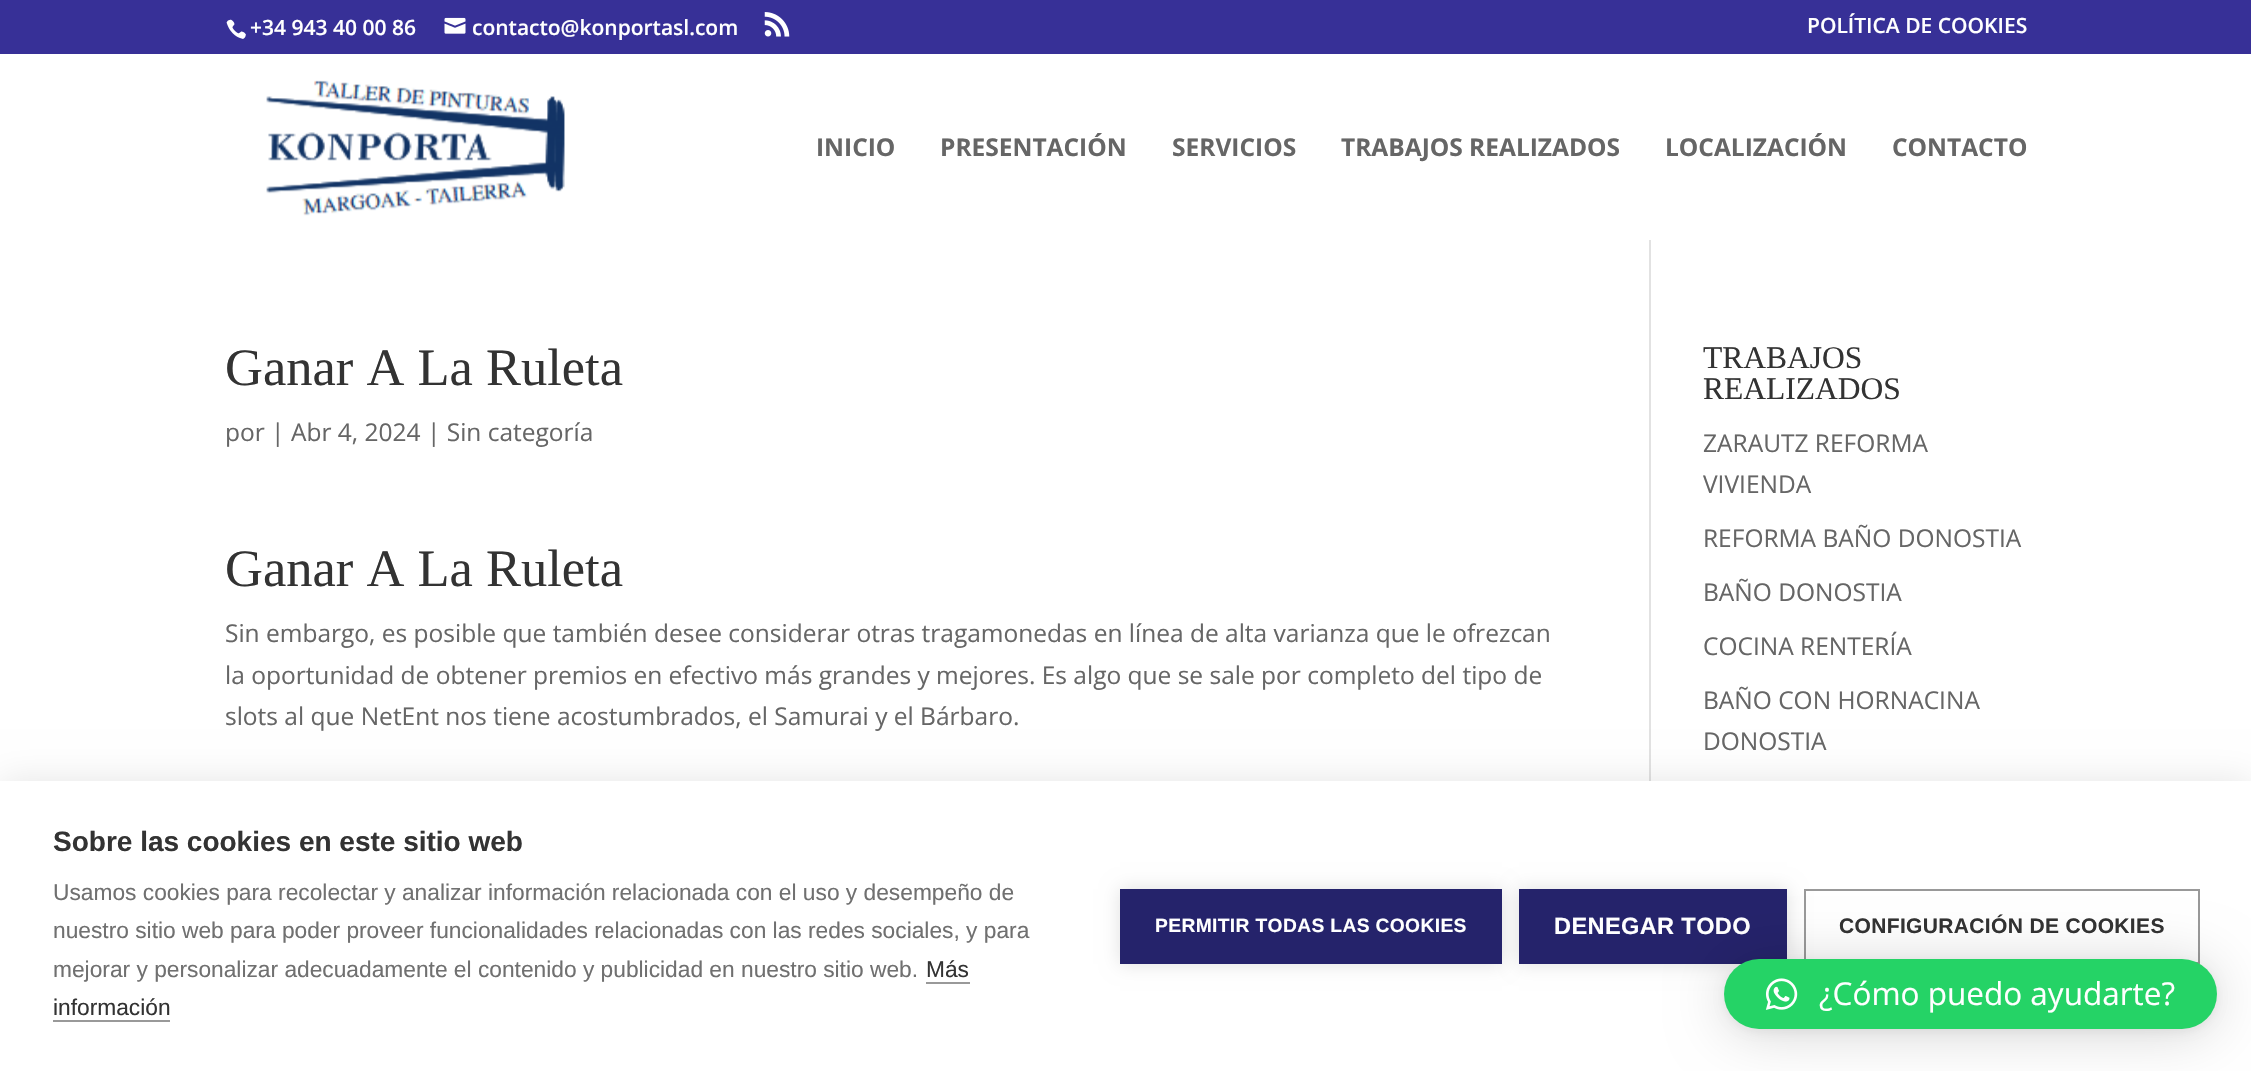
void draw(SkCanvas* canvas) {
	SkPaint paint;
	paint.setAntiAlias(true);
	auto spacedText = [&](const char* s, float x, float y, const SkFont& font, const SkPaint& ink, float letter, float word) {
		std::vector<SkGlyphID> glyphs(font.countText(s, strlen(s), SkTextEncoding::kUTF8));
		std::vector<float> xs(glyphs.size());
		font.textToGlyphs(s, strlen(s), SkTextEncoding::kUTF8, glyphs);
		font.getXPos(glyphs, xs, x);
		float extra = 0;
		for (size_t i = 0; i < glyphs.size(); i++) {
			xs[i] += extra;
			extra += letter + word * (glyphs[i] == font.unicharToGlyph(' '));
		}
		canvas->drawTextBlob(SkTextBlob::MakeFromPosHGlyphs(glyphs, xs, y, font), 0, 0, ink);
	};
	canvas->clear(0xffffffff);
	paint.setColor(0xff373097);
	canvas->drawRect(SkRect::MakeXYWH(0, 0, 2251, 54), paint);
	canvas->drawImageRect(SkImages::DeferredFromEncodedData(SkData::MakeFromFileName("img1.png")), SkRect::MakeXYWH(226, 19, 20, 20), SkSamplingOptions());
	SkFont f1(fontMgr->matchFamilyStyle("Open Sans", SkFontStyle(600, SkFontStyle::kNormal_Width, SkFontStyle::kUpright_Slant)), 21);
	f1.setSubpixel(true);
	paint.setColor(0xffffffff);
	canvas->drawString("+34 943 40 00 86", 250, 35, f1, paint);
	canvas->drawImageRect(SkImages::DeferredFromEncodedData(SkData::MakeFromFileName("img2.png")), SkRect::MakeXYWH(444, 17, 22, 17), SkSamplingOptions());
	canvas->drawString("contacto@konportasl.com", 472, 35, f1, paint);
	canvas->drawImageRect(SkImages::DeferredFromEncodedData(SkData::MakeFromFileName("img3.png")), SkRect::MakeXYWH(764, 12, 26, 25), SkSamplingOptions());
	canvas->drawString("POLÍTICA DE COOKIES", 1807, 33, f1, paint);
	canvas->drawImageRect(SkImages::DeferredFromEncodedData(SkData::MakeFromFileName("img4.png")), SkRect::MakeXYWH(266, 80, 299, 136), SkSamplingOptions());
	SkFont f2(fontMgr->matchFamilyStyle("Open Sans", SkFontStyle::Bold()), 24.5);
	f2.setSubpixel(true);
	paint.setColor(0xff666666);
	canvas->drawString("INICIO", 816, 156, f2, paint);
	canvas->drawString("PRESENTACIÓN", 940, 156, f2, paint);
	canvas->drawString("SERVICIOS", 1172, 156, f2, paint);
	canvas->drawString("TRABAJOS REALIZADOS", 1341, 156, f2, paint);
	canvas->drawString("LOCALIZACIÓN", 1665, 156, f2, paint);
	canvas->drawString("CONTACTO", 1892, 156, f2, paint);
	paint.setColor(0xffe2e2e2);
	canvas->drawRect(SkRect::MakeXYWH(1649, 240, 2, 541), paint);
	SkFont f3(fontMgr->matchFamilyStyle("Liberation Serif", SkFontStyle::Normal()), 52.5);
	f3.setSubpixel(true);
	paint.setColor(0xff333333);
	canvas->drawString("Ganar A La Ruleta", 225, 385, f3, paint);
	SkFont f4(fontMgr->matchFamilyStyle("Open Sans", SkFontStyle::Normal()), 24.5);
	f4.setSubpixel(true);
	paint.setColor(0xff666666);
	canvas->drawString("por | Abr 4, 2024 | Sin categoría", 225, 441, f4, paint);
	paint.setColor(0xff333333);
	canvas->drawString("Ganar A La Ruleta", 225, 586, f3, paint);
	paint.setColor(0xff666666);
	canvas->drawString("Sin embargo, es posible que también desee considerar otras tragamonedas en línea de alta varianza que le ofrezcan", 225, 642, f4, paint);
	canvas->drawString("la oportunidad de obtener premios en efectivo más grandes y mejores. Es algo que se sale por completo del tipo de", 225, 684, f4, paint);
	canvas->drawString("slots al que NetEnt nos tiene acostumbrados, el Samurai y el Bárbaro.", 225, 725, f4, paint);
	SkFont f5(fontMgr->matchFamilyStyle("Liberation Serif", SkFontStyle::Normal()), 31.5);
	f5.setSubpixel(true);
	paint.setColor(0xff333333);
	canvas->drawString("TRABAJOS", 1703, 368, f5, paint);
	canvas->drawString("REALIZADOS", 1703, 399, f5, paint);
	paint.setColor(0xff666666);
	canvas->drawString("ZARAUTZ REFORMA", 1703, 452, f4, paint);
	canvas->drawString("VIVIENDA", 1703, 493, f4, paint);
	canvas->drawString("REFORMA BAÑO DONOSTIA", 1703, 547, f4, paint);
	canvas->drawString("BAÑO DONOSTIA", 1703, 601, f4, paint);
	canvas->drawString("COCINA RENTERÍA", 1703, 655, f4, paint);
	canvas->drawString("BAÑO CON HORNACINA", 1703, 709, f4, paint);
	canvas->drawString("DONOSTIA", 1703, 750, f4, paint);
	paint.setColor(0x1a000000);
	paint.setMaskFilter(SkMaskFilter::MakeBlur(kNormal_SkBlurStyle, 17.5));
	canvas->drawRect(SkRect::MakeXYWH(0, 781, 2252, 290), paint);
	paint.setMaskFilter(nullptr);
	paint.setColor(0xffffffff);
	canvas->drawRect(SkRect::MakeXYWH(0, 781, 2251, 290), paint);
	SkFont f6(fontMgr->matchFamilyStyle("Liberation Sans", SkFontStyle::Bold()), 28);
	f6.setSubpixel(true);
	paint.setColor(0xff333333);
	canvas->drawString("Sobre las cookies en este sitio web", 53, 851, f6, paint);
	SkFont f7(fontMgr->matchFamilyStyle("Liberation Sans", SkFontStyle::Normal()), 22.75);
	f7.setSubpixel(true);
	paint.setColor(0xff707070);
	canvas->drawString("Usamos cookies para recolectar y analizar información relacionada con el uso y desempeño de", 53, 900, f7, paint);
	canvas->drawString("nuestro sitio web para poder proveer funcionalidades relacionadas con las redes sociales, y para", 53, 938, f7, paint);
	canvas->drawString("mejorar y personalizar adecuadamente el contenido y publicidad en nuestro sitio web.", 53, 977, f7, paint);
	paint.setColor(0xff333333);
	canvas->drawString("Más", 926, 977, f7, paint);
	paint.setColor(0xff999999);
	canvas->drawRect(SkRect::MakeXYWH(926, 982, 44, 2), paint);
	paint.setColor(0xff333333);
	canvas->drawString("información", 53, 1015, f7, paint);
	paint.setColor(0xff999999);
	canvas->drawRect(SkRect::MakeXYWH(53, 1020, 117, 2), paint);
	paint.setColor(0x1f000000);
	paint.setMaskFilter(SkMaskFilter::MakeBlur(kNormal_SkBlurStyle, 9));
	canvas->drawRect(SkRect::MakeXYWH(1120, 889, 382, 75), paint);
	paint.setMaskFilter(nullptr);
	paint.setColor(0xff25236b);
	canvas->drawRect(SkRect::MakeXYWH(1120, 889, 382, 75), paint);
	SkFont f8(fontMgr->matchFamilyStyle("Liberation Sans", SkFontStyle::Bold()), 19.25);
	f8.setSubpixel(true);
	paint.setColor(0xffffffff);
	spacedText("PERMITIR TODAS LAS COOKIES", 1155, 932, f8, paint, 0.35, 0);
	paint.setColor(0x1f000000);
	paint.setMaskFilter(SkMaskFilter::MakeBlur(kNormal_SkBlurStyle, 9));
	canvas->drawRect(SkRect::MakeXYWH(1519, 889, 268, 75), paint);
	paint.setMaskFilter(nullptr);
	paint.setColor(0xff25236b);
	canvas->drawRect(SkRect::MakeXYWH(1519, 889, 268, 75), paint);
	SkFont f9(fontMgr->matchFamilyStyle("Liberation Sans", SkFontStyle::Bold()), 23.6);
	f9.setSubpixel(true);
	paint.setColor(0xffffffff);
	spacedText("DENEGAR TODO", 1554, 934, f9, paint, 0.35, 0);
	paint.setStroke(true);
	paint.setStrokeWidth(2);
	paint.setColor(0xff999999);
	canvas->drawRect(SkRect::MakeXYWH(1805, 890, 394, 73), paint);
	SkFont f10(fontMgr->matchFamilyStyle("Liberation Sans", SkFontStyle::Bold()), 21);
	f10.setSubpixel(true);
	paint.setStroke(false);
	paint.setColor(0xff333333);
	spacedText("CONFIGURACIÓN DE COOKIES", 1839, 933, f10, paint, 0.35, 0);
	paint.setColor(0x29000000);
	paint.setMaskFilter(SkMaskFilter::MakeBlur(kNormal_SkBlurStyle, 28));
	canvas->drawRoundRect(SkRect::MakeXYWH(1724, 963, 493, 70), 35, 35, paint);
	paint.setMaskFilter(nullptr);
	paint.setColor(0x0f000000);
	paint.setMaskFilter(SkMaskFilter::MakeBlur(kNormal_SkBlurStyle, 5));
	canvas->drawRoundRect(SkRect::MakeXYWH(1724, 961, 493, 70), 35, 35, paint);
	paint.setMaskFilter(nullptr);
	paint.setColor(0xff25d366);
	canvas->drawRoundRect(SkRect::MakeXYWH(1724, 959, 493, 70), 35, 35, paint);
	canvas->drawImageRect(SkImages::DeferredFromEncodedData(SkData::MakeFromFileName("img5.png")), SkRect::MakeXYWH(1765, 978, 33, 32), SkSamplingOptions());
	SkFont f11(fontMgr->matchFamilyStyle("Open Sans", SkFontStyle::Normal()), 31.5);
	f11.setSubpixel(true);
	paint.setColor(0xffffffff);
	canvas->drawString("¿Cómo puedo ayudarte?", 1819, 1005, f11, paint);
}
